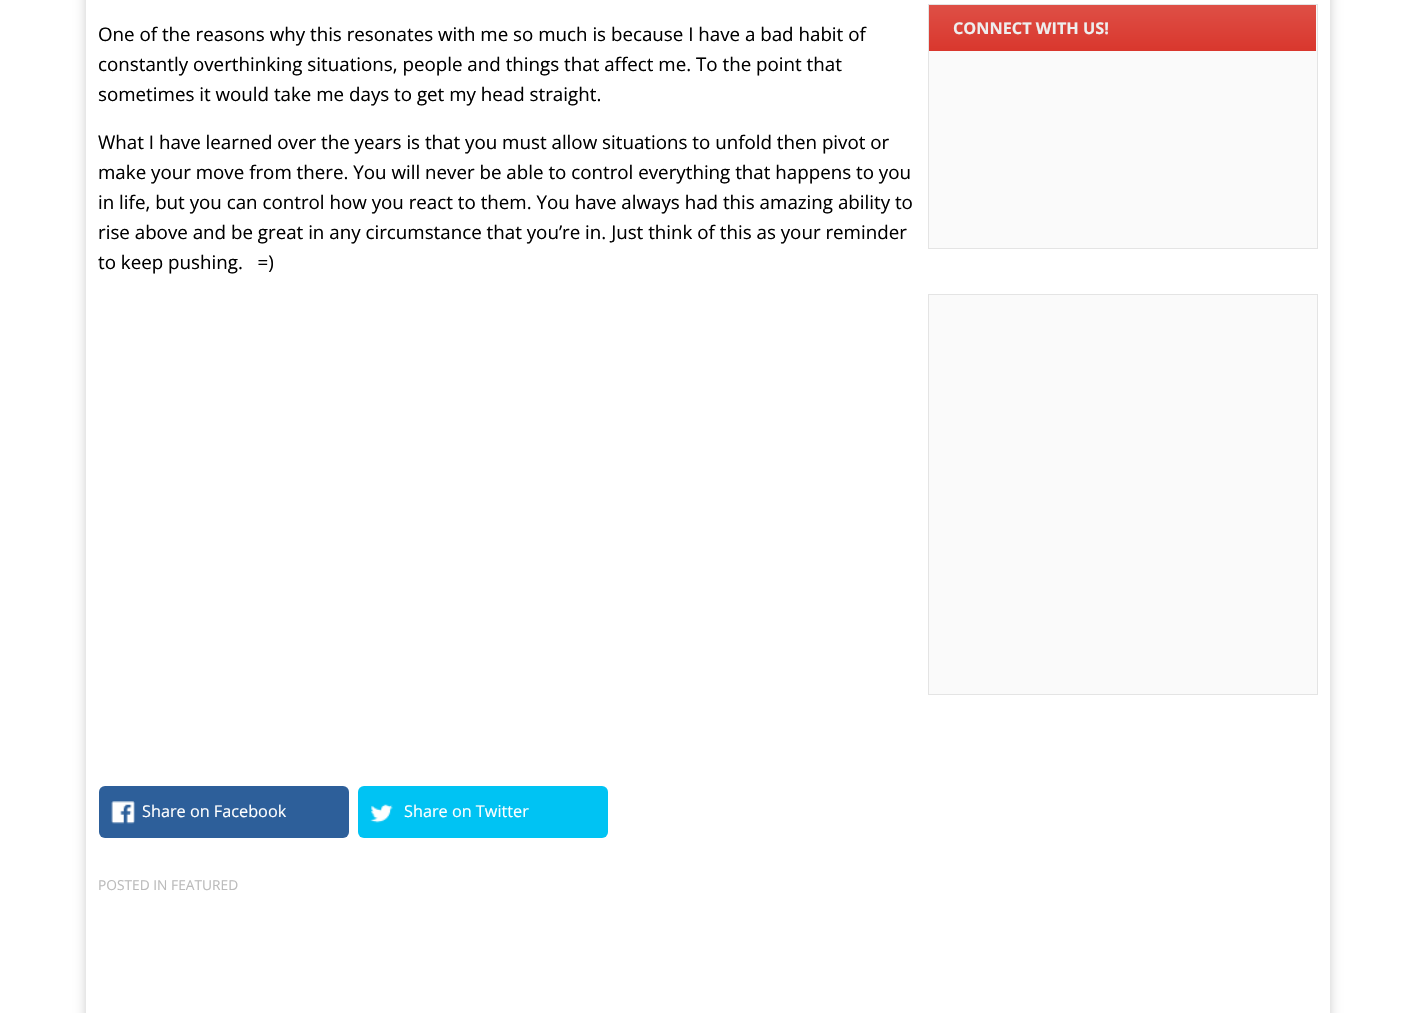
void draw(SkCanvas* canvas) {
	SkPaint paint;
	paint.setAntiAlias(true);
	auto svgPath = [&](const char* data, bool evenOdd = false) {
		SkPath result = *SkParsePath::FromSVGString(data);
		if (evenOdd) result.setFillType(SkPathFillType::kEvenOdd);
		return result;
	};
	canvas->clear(0xffffffff);
	canvas->save();
	canvas->clipPath(svgPath("M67 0H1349V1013H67ZM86-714H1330V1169C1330 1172.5 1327.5 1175 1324 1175H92C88.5 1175 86 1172.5 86 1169Z", true), true);
	paint.setColor(0x33000000);
	paint.setMaskFilter(SkMaskFilter::MakeBlur(kNormal_SkBlurStyle, 6));
	canvas->drawRoundRect(SkRect::MakeXYWH(86, -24, 1244, 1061), 6, 6, paint);
	paint.setMaskFilter(nullptr);
	canvas->restore();
	SkFont f1(fontMgr->matchFamilyStyle("Open Sans", SkFontStyle::Normal()), 18.75);
	f1.setSubpixel(true);
	paint.setColor(0xff000000);
	canvas->drawString("One of the reasons why this resonates with me so much is because I have a bad habit of", 98, 41, f1, paint);
	canvas->drawString("constantly overthinking situations, people and things that affect me. To the point that", 98, 71, f1, paint);
	canvas->drawString("sometimes it would take me days to get my head straight.", 98, 101, f1, paint);
	canvas->drawString("What I have learned over the years is that you must allow situations to unfold then pivot or", 98, 149, f1, paint);
	canvas->drawString("make your move from there. You will never be able to control everything that happens to you", 98, 179, f1, paint);
	canvas->drawString("in life, but you can control how you react to them. You have always had this amazing ability to", 98, 209, f1, paint);
	canvas->drawString("rise above and be great in any circumstance that you’re in. Just think of this as your reminder", 98, 239, f1, paint);
	canvas->drawString("to keep pushing.   =)", 98, 269, f1, paint);
	paint.setColor(0xff2d5f9a);
	canvas->drawRoundRect(SkRect::MakeXYWH(99, 786, 250, 52), 6, 6, paint);
	canvas->drawImageRect(SkImages::DeferredFromEncodedData(SkData::MakeFromFileName("img1.png")), SkRect::MakeXYWH(111, 801, 24, 23), SkSamplingOptions());
	SkFont f2(fontMgr->matchFamilyStyle("Open Sans", SkFontStyle::Normal()), 16.25);
	f2.setSubpixel(true);
	paint.setColor(0xffffffff);
	canvas->drawString("Share on Facebook", 142, 817, f2, paint);
	paint.setColor(0xff00c3f3);
	canvas->drawRoundRect(SkRect::MakeXYWH(358, 786, 250, 52), 6, 6, paint);
	canvas->drawImageRect(SkImages::DeferredFromEncodedData(SkData::MakeFromFileName("img2.png")), SkRect::MakeXYWH(370, 804, 23, 19), SkSamplingOptions());
	paint.setColor(0xffffffff);
	canvas->drawString("Share on Twitter", 404, 817, f2, paint);
	SkFont f3(fontMgr->matchFamilyStyle("Open Sans", SkFontStyle::Normal()), 13.75);
	f3.setSubpixel(true);
	paint.setColor(0xffbbbbbb);
	canvas->drawString("POSTED IN FEATURED", 98, 890, f3, paint);
	paint.setColor(0xfffafafa);
	canvas->drawRect(SkRect::MakeXYWH(928.5, 4.5, 389, 244), paint);
	paint.setStroke(true);
	paint.setStrokeWidth(1);
	paint.setColor(0xffe4e4e4);
	canvas->drawRect(SkRect::MakeXYWH(928.5, 4.5, 389, 244), paint);
	paint.setStroke(false);
	{
		const SkColor colors[] = {0xffde4f46, 0xffd9372d};
		const float stops[] = {0, 1};
		const SkPoint ends[] = {{1123, 5}, {1123, 51}};
		paint.setShader(SkGradientShader::MakeLinear(ends, colors, stops, 2, SkTileMode::kClamp));
		paint.setAlpha(255);
	}
	canvas->drawRect(SkRect::MakeXYWH(929, 5, 387, 46), paint);
	SkFont f4(fontMgr->matchFamilyStyle("Open Sans", SkFontStyle::Bold()), 16.25);
	f4.setSubpixel(true);
	paint.setShader(nullptr);
	paint.setColor(0xffeeeeee);
	canvas->drawString("CONNECT WITH US!", 953, 34, f4, paint);
	paint.setColor(0xfffafafa);
	canvas->drawRect(SkRect::MakeXYWH(928.5, 294.5, 389, 400), paint);
	paint.setStroke(true);
	paint.setColor(0xffe4e4e4);
	canvas->drawRect(SkRect::MakeXYWH(928.5, 294.5, 389, 400), paint);
}
